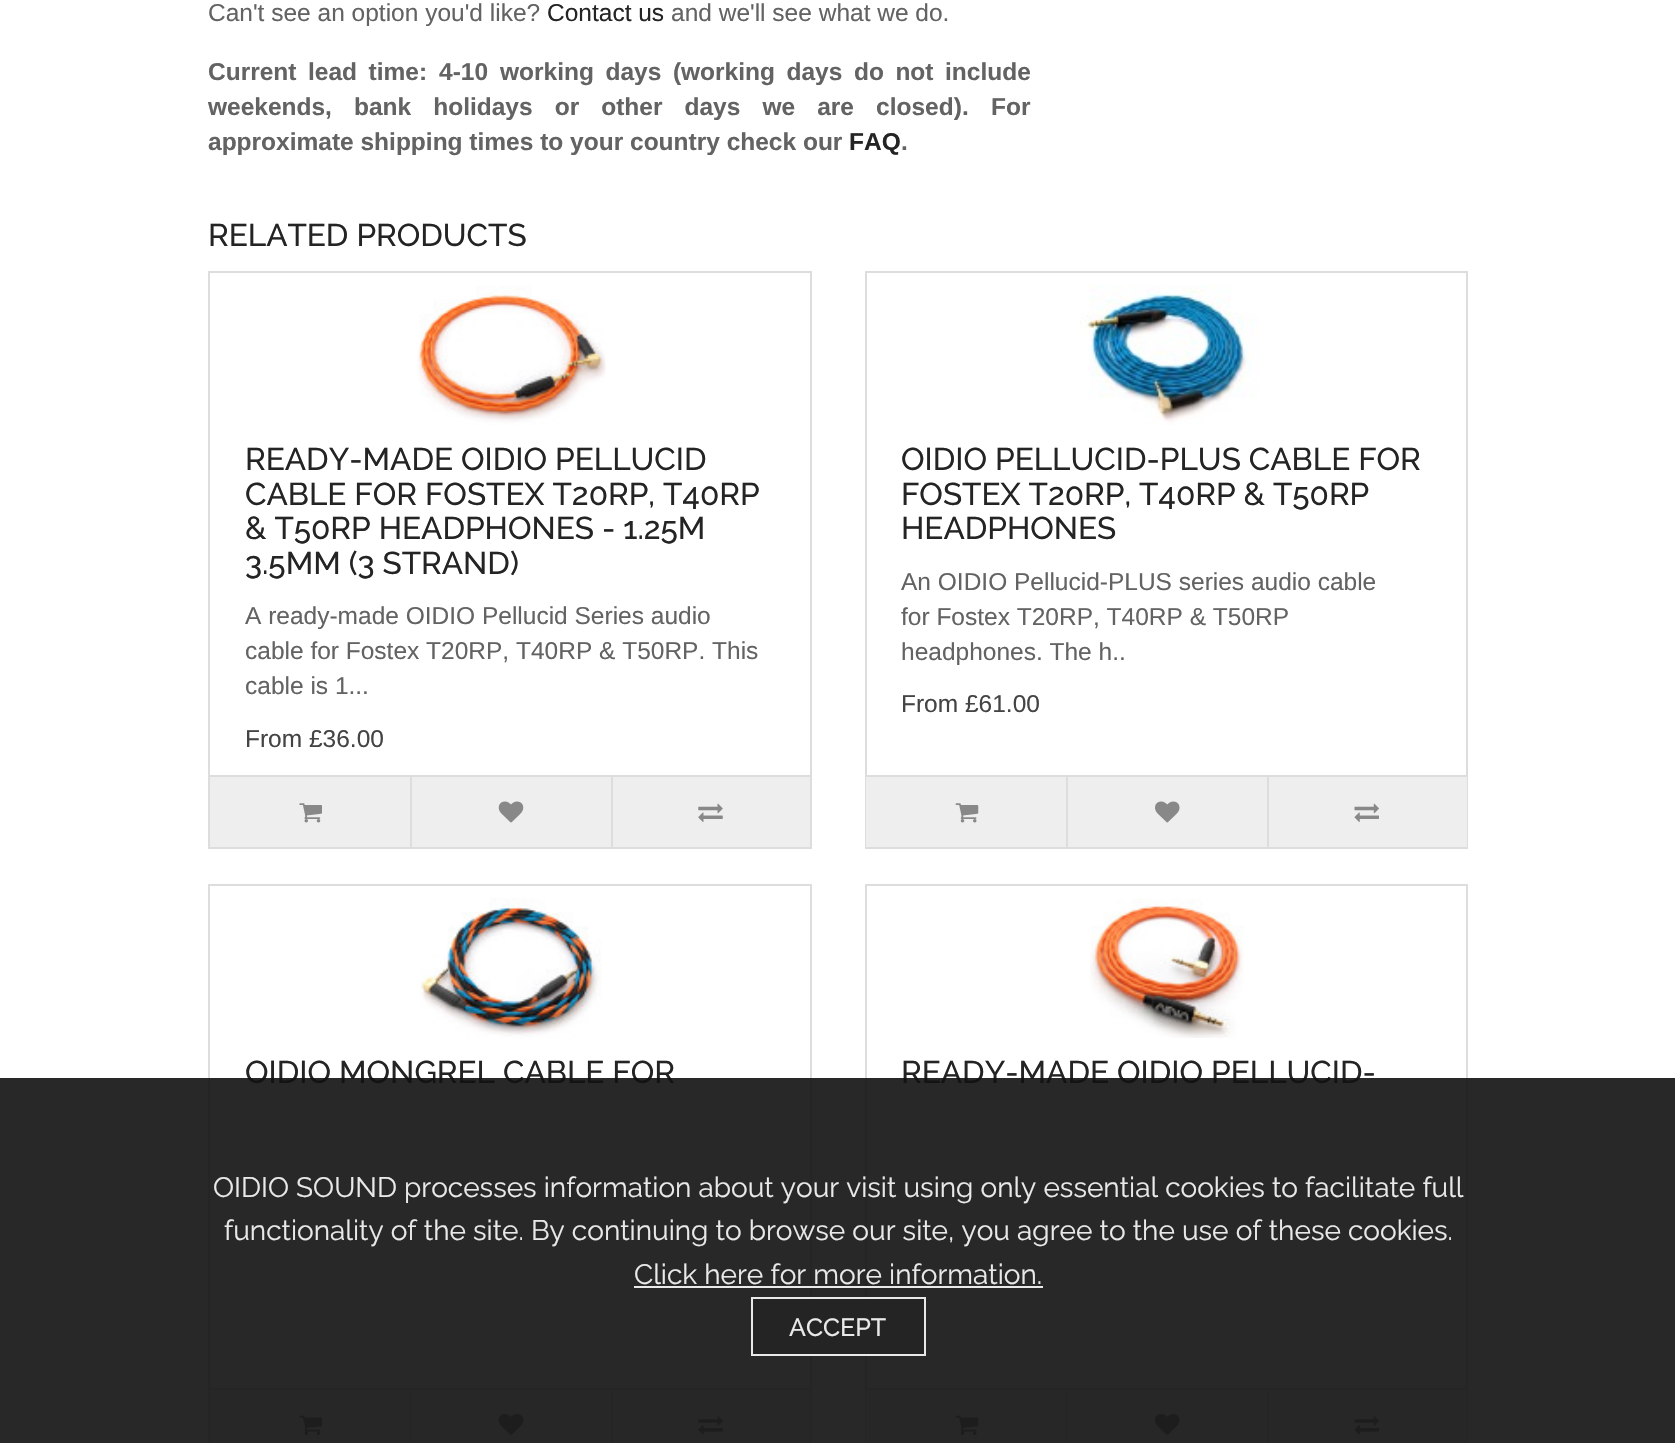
void draw(SkCanvas* canvas) {
	SkPaint paint;
	paint.setAntiAlias(true);
	auto spacedText = [&](const char* s, float x, float y, const SkFont& font, const SkPaint& ink, float letter, float word) {
		std::vector<SkGlyphID> glyphs(font.countText(s, strlen(s), SkTextEncoding::kUTF8));
		std::vector<float> xs(glyphs.size());
		font.textToGlyphs(s, strlen(s), SkTextEncoding::kUTF8, glyphs);
		font.getXPos(glyphs, xs, x);
		float extra = 0;
		for (size_t i = 0; i < glyphs.size(); i++) {
			xs[i] += extra;
			extra += letter + word * (glyphs[i] == font.unicharToGlyph(' '));
		}
		canvas->drawTextBlob(SkTextBlob::MakeFromPosHGlyphs(glyphs, xs, y, font), 0, 0, ink);
	};
	canvas->clear(0xffffffff);
	SkFont f1(fontMgr->matchFamilyStyle("Liberation Sans", SkFontStyle::Normal()), 24.5);
	f1.setSubpixel(true);
	paint.setColor(0xff636363);
	canvas->drawString("Can't see an option you'd like?", 208, 21, f1, paint);
	paint.setColor(0xff242424);
	canvas->drawString("Contact us", 547, 21, f1, paint);
	paint.setColor(0xff636363);
	canvas->drawString("and we'll see what we do.", 671, 21, f1, paint);
	SkFont f2(fontMgr->matchFamilyStyle("Liberation Sans", SkFontStyle::Bold()), 24.5);
	f2.setSubpixel(true);
	spacedText("Current lead time:", 208, 80, f2, paint, 0, 4.75);
	canvas->drawString("4-10", 439, 80, f2, paint);
	spacedText("working days (working days do not include", 500, 80, f2, paint, 0, 4.75);
	spacedText("weekends, bank holidays or other days we are closed)", 208, 115, f2, paint, 0, 15.25);
	canvas->drawString(".", 962, 115, f2, paint);
	canvas->drawString("For", 991, 115, f2, paint);
	canvas->drawString("approximate shipping times to your country check our", 208, 150, f2, paint);
	paint.setColor(0xff242424);
	canvas->drawString("FAQ", 849, 150, f2, paint);
	paint.setColor(0xff636363);
	canvas->drawString(".", 901, 150, f2, paint);
	SkFont f3(fontMgr->matchFamilyStyle("Raleway", SkFontStyle(500, SkFontStyle::kNormal_Width, SkFontStyle::kUpright_Slant)), 31.5);
	f3.setSubpixel(true);
	paint.setColor(0xff242424);
	canvas->drawString("RELATED PRODUCTS", 208, 246, f3, paint);
	paint.setStroke(true);
	paint.setStrokeWidth(2);
	paint.setColor(0xffdddddd);
	canvas->drawRect(SkRect::MakeXYWH(209, 272, 602, 576), paint);
	canvas->drawImageRect(SkImages::DeferredFromEncodedData(SkData::MakeFromFileName("img1.png")), SkRect::MakeXYWH(417, 285, 189, 140), SkSamplingOptions());
	paint.setStroke(false);
	paint.setColor(0xff242424);
	canvas->drawString("READY-MADE OIDIO PELLUCID", 245, 470, f3, paint);
	canvas->drawString("CABLE FOR FOSTEX T20RP, T40RP", 245, 505, f3, paint);
	canvas->drawString("& T50RP HEADPHONES - 1.25M", 245, 539, f3, paint);
	canvas->drawString("3.5MM (3 STRAND)", 245, 574, f3, paint);
	paint.setColor(0xff636363);
	canvas->drawString("A ready-made OIDIO Pellucid Series audio", 245, 624, f1, paint);
	canvas->drawString("cable for Fostex T20RP, T40RP & T50RP. This", 245, 659, f1, paint);
	canvas->drawString("cable is 1...", 245, 694, f1, paint);
	paint.setColor(0xff444444);
	canvas->drawString("From £36.00", 245, 747, f1, paint);
	paint.setColor(0xffeeeeee);
	canvas->drawRect(SkRect::MakeXYWH(210, 777, 600, 70), paint);
	paint.setColor(0xffdddddd);
	canvas->drawRect(SkRect::MakeXYWH(210, 775, 600, 2), paint);
	canvas->drawImageRect(SkImages::DeferredFromEncodedData(SkData::MakeFromFileName("img2.png")), SkRect::MakeXYWH(299, 803, 23, 20), SkSamplingOptions());
	canvas->drawRect(SkRect::MakeXYWH(410, 777, 2, 70), paint);
	canvas->drawImageRect(SkImages::DeferredFromEncodedData(SkData::MakeFromFileName("img3.png")), SkRect::MakeXYWH(498, 801, 26, 22), SkSamplingOptions());
	canvas->drawRect(SkRect::MakeXYWH(611, 777, 2, 70), paint);
	canvas->drawImageRect(SkImages::DeferredFromEncodedData(SkData::MakeFromFileName("img4.png")), SkRect::MakeXYWH(698, 803, 25, 19), SkSamplingOptions());
	paint.setStroke(true);
	canvas->drawRect(SkRect::MakeXYWH(866, 272, 601, 576), paint);
	canvas->drawImageRect(SkImages::DeferredFromEncodedData(SkData::MakeFromFileName("img5.png")), SkRect::MakeXYWH(1080, 285, 179, 140), SkSamplingOptions());
	paint.setStroke(false);
	paint.setColor(0xff242424);
	canvas->drawString("OIDIO PELLUCID-PLUS CABLE FOR", 901, 470, f3, paint);
	canvas->drawString("FOSTEX T20RP, T40RP & T50RP", 901, 505, f3, paint);
	canvas->drawString("HEADPHONES", 901, 539, f3, paint);
	paint.setColor(0xff636363);
	canvas->drawString("An OIDIO Pellucid-PLUS series audio cable", 901, 590, f1, paint);
	canvas->drawString("for Fostex T20RP, T40RP & T50RP", 901, 625, f1, paint);
	canvas->drawString("headphones. The h..", 901, 660, f1, paint);
	paint.setColor(0xff444444);
	canvas->drawString("From £61.00", 901, 712, f1, paint);
	paint.setColor(0xffeeeeee);
	canvas->drawRect(SkRect::MakeXYWH(866, 777, 601, 70), paint);
	paint.setColor(0xffdddddd);
	canvas->drawRect(SkRect::MakeXYWH(866, 775, 601, 2), paint);
	canvas->drawImageRect(SkImages::DeferredFromEncodedData(SkData::MakeFromFileName("img6.png")), SkRect::MakeXYWH(955, 803, 24, 20), SkSamplingOptions());
	canvas->drawRect(SkRect::MakeXYWH(1066, 777, 2, 70), paint);
	canvas->drawImageRect(SkImages::DeferredFromEncodedData(SkData::MakeFromFileName("img7.png")), SkRect::MakeXYWH(1155, 801, 25, 22), SkSamplingOptions());
	canvas->drawRect(SkRect::MakeXYWH(1267, 777, 2, 70), paint);
	canvas->drawImageRect(SkImages::DeferredFromEncodedData(SkData::MakeFromFileName("img8.png")), SkRect::MakeXYWH(1354, 803, 25, 19), SkSamplingOptions());
	paint.setStroke(true);
	canvas->drawRect(SkRect::MakeXYWH(209, 885, 602, 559), paint);
	canvas->drawImageRect(SkImages::DeferredFromEncodedData(SkData::MakeFromFileName("img9.png")), SkRect::MakeXYWH(420, 898, 182, 140), SkSamplingOptions());
	paint.setStroke(false);
	paint.setColor(0xff242424);
	canvas->drawString("OIDIO MONGREL CABLE FOR", 245, 1083, f3, paint);
	paint.setColor(0xffeeeeee);
	canvas->drawRect(SkRect::MakeXYWH(210, 1390, 600, 53), paint);
	paint.setColor(0xffdddddd);
	canvas->drawRect(SkRect::MakeXYWH(210, 1388, 600, 2), paint);
	canvas->drawImageRect(SkImages::DeferredFromEncodedData(SkData::MakeFromFileName("img10.png")), SkRect::MakeXYWH(299, 1415, 23, 20), SkSamplingOptions());
	canvas->drawRect(SkRect::MakeXYWH(410, 1390, 2, 53), paint);
	canvas->drawImageRect(SkImages::DeferredFromEncodedData(SkData::MakeFromFileName("img11.png")), SkRect::MakeXYWH(498, 1414, 26, 21), SkSamplingOptions());
	canvas->drawRect(SkRect::MakeXYWH(611, 1390, 2, 53), paint);
	canvas->drawImageRect(SkImages::DeferredFromEncodedData(SkData::MakeFromFileName("img12.png")), SkRect::MakeXYWH(698, 1416, 25, 19), SkSamplingOptions());
	paint.setStroke(true);
	canvas->drawRect(SkRect::MakeXYWH(866, 885, 601, 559), paint);
	canvas->drawImageRect(SkImages::DeferredFromEncodedData(SkData::MakeFromFileName("img13.png")), SkRect::MakeXYWH(1090, 898, 154, 140), SkSamplingOptions());
	paint.setStroke(false);
	paint.setColor(0xff242424);
	canvas->drawString("READY-MADE OIDIO PELLUCID-", 901, 1083, f3, paint);
	paint.setColor(0xffeeeeee);
	canvas->drawRect(SkRect::MakeXYWH(866, 1390, 601, 53), paint);
	paint.setColor(0xffdddddd);
	canvas->drawRect(SkRect::MakeXYWH(866, 1388, 601, 2), paint);
	canvas->drawImageRect(SkImages::DeferredFromEncodedData(SkData::MakeFromFileName("img14.png")), SkRect::MakeXYWH(955, 1415, 24, 20), SkSamplingOptions());
	canvas->drawRect(SkRect::MakeXYWH(1066, 1390, 2, 53), paint);
	canvas->drawImageRect(SkImages::DeferredFromEncodedData(SkData::MakeFromFileName("img15.png")), SkRect::MakeXYWH(1155, 1414, 25, 21), SkSamplingOptions());
	canvas->drawRect(SkRect::MakeXYWH(1267, 1390, 2, 53), paint);
	canvas->drawImageRect(SkImages::DeferredFromEncodedData(SkData::MakeFromFileName("img16.png")), SkRect::MakeXYWH(1354, 1416, 25, 19), SkSamplingOptions());
	paint.setColor(0xe6111111);
	canvas->drawRect(SkRect::MakeXYWH(0, 1078, 1675, 365), paint);
	SkFont f4(fontMgr->matchFamilyStyle("Raleway", SkFontStyle::Normal()), 28);
	f4.setSubpixel(true);
	paint.setColor(0xffe9e9e9);
	canvas->drawString("OIDIO SOUND processes information about your visit using only essential cookies to facilitate full", 213, 1197, f4, paint);
	canvas->drawString("functionality of the site. By continuing to browse our site, you agree to the use of these cookies.", 224, 1240, f4, paint);
	canvas->drawString("Click here for more information.", 634, 1284, f4, paint);
	paint.setColor(0xe6ffffff);
	canvas->drawRect(SkRect::MakeXYWH(634, 1286, 409, 2), paint);
	paint.setColor(0xe6242424);
	canvas->drawRect(SkRect::MakeXYWH(752, 1298, 173, 57), paint);
	paint.setStroke(true);
	paint.setColor(0xffe9e9e9);
	canvas->drawRect(SkRect::MakeXYWH(752, 1298, 173, 57), paint);
	SkFont f5(fontMgr->matchFamilyStyle("Raleway", SkFontStyle(500, SkFontStyle::kNormal_Width, SkFontStyle::kUpright_Slant)), 25);
	f5.setSubpixel(true);
	paint.setStroke(false);
	canvas->drawString("ACCEPT", 789, 1336, f5, paint);
}
